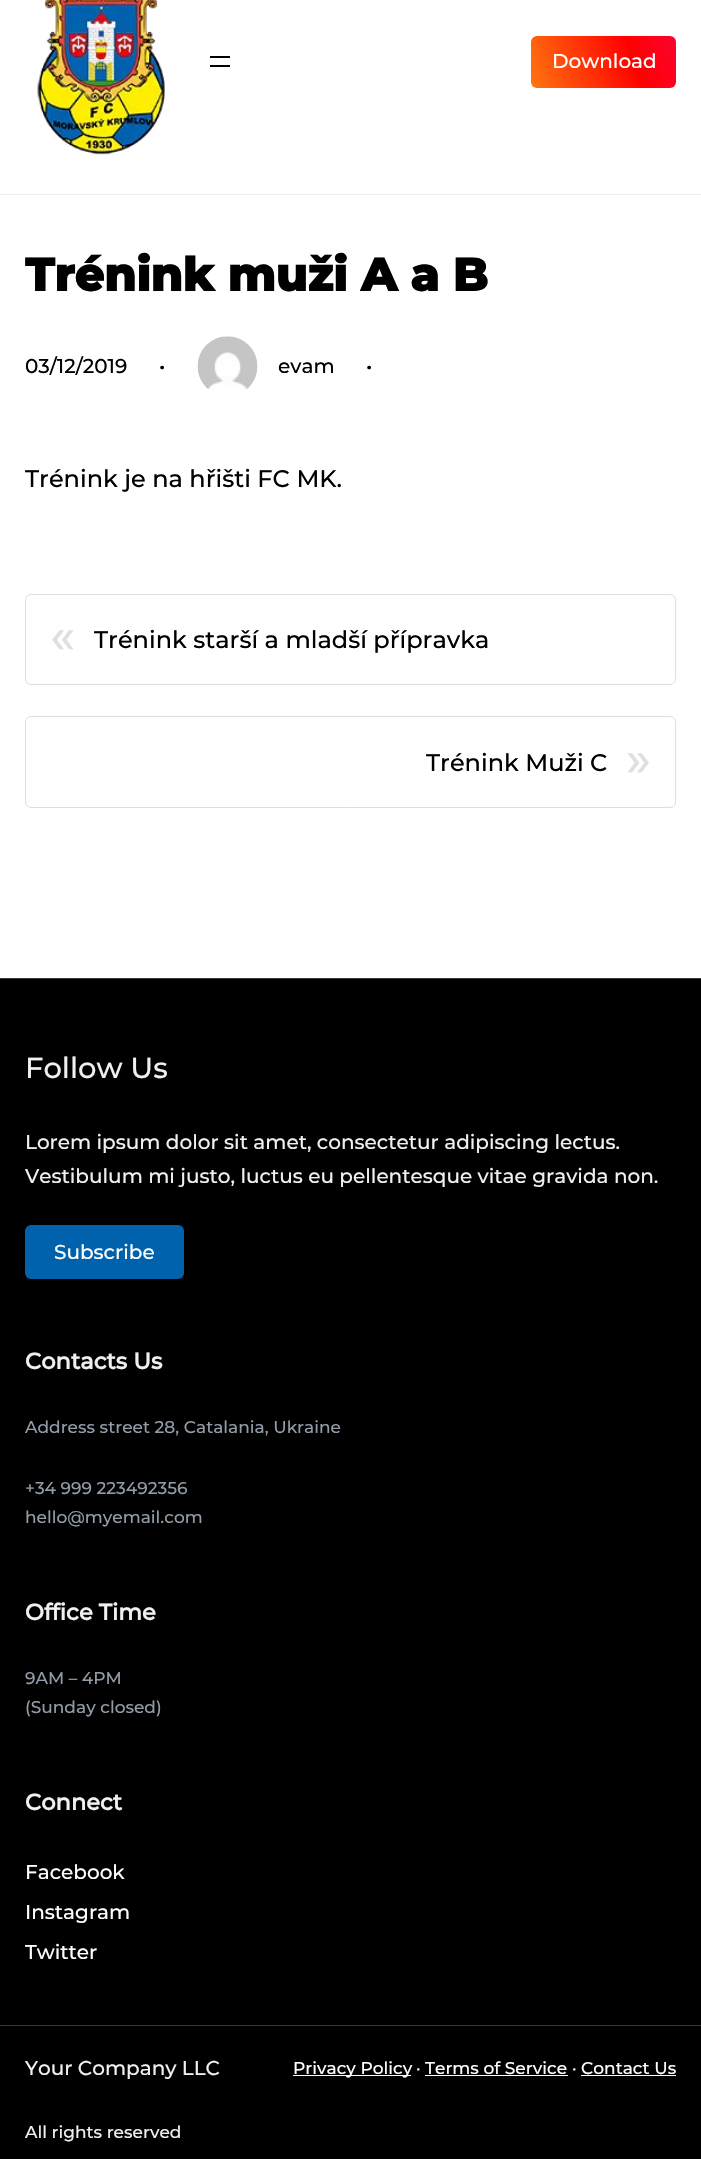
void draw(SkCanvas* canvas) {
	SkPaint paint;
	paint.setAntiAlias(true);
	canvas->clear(0xffffffff);
	paint.setColor(0xffededed);
	canvas->drawRect(SkRect::MakeXYWH(0, 194, 701, 1), paint);
	canvas->drawImageRect(SkImages::DeferredFromEncodedData(SkData::MakeFromFileName("img1.png")), SkRect::MakeXYWH(37, 0, 128, 155), SkSamplingOptions());
	paint.setColor(0xff000001);
	canvas->drawRect(SkRect::MakeXYWH(210, 56, 20, 2), paint);
	canvas->drawRect(SkRect::MakeXYWH(210, 65, 20, 2), paint);
	{
		const SkColor colors[] = {0xffff8813, 0xffff0000, 0xffee0ebd};
		const float stops[] = {0, 0.4, 1};
		const SkPoint ends[] = {{532, 140}, {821, 35}};
		paint.setShader(SkGradientShader::MakeLinear(ends, colors, stops, 3, SkTileMode::kClamp));
		paint.setAlpha(255);
	}
	canvas->drawRoundRect(SkRect::MakeXYWH(531, 36, 145, 52), 6, 6, paint);
	SkFont f1(fontMgr->matchFamilyStyle("Montserrat", SkFontStyle(100, SkFontStyle::kNormal_Width, SkFontStyle::kUpright_Slant)), 20);
	f1.setSubpixel(true);
	paint.setShader(nullptr);
	paint.setColor(0xfffffffd);
	canvas->drawString("Download", 552, 68, f1, paint);
	SkFont f2(fontMgr->matchFamilyStyle("Montserrat", SkFontStyle::Bold()), 46);
	f2.setSubpixel(true);
	paint.setColor(0xff000001);
	canvas->drawString("Trénink muži A a B", 25, 291, f2, paint);
	canvas->drawString("03/12/2019", 25, 373, f1, paint);
	canvas->drawString("•", 159, 373, f1, paint);
	canvas->drawImageRect(SkImages::DeferredFromEncodedData(SkData::MakeFromFileName("img2.png")), SkRect::MakeXYWH(197, 336, 61, 54), SkSamplingOptions());
	canvas->drawString("evam", 278, 373, f1, paint);
	canvas->drawString("•", 366, 373, f1, paint);
	SkFont f3(fontMgr->matchFamilyStyle("Montserrat", SkFontStyle(100, SkFontStyle::kNormal_Width, SkFontStyle::kUpright_Slant)), 24);
	f3.setSubpixel(true);
	canvas->drawString("Trénink je na hřišti FC MK.", 25, 487, f3, paint);
	paint.setStroke(true);
	paint.setStrokeWidth(1);
	paint.setColor(0xffdedfe0);
	canvas->drawRoundRect(SkRect::MakeXYWH(25.5, 594.5, 650, 90), 5.5, 5.5, paint);
	SkFont f4(fontMgr->matchFamilyStyle("Montserrat", SkFontStyle(100, SkFontStyle::kNormal_Width, SkFontStyle::kUpright_Slant)), 50);
	f4.setSubpixel(true);
	paint.setStroke(false);
	canvas->drawString("«", 50, 653, f4, paint);
	paint.setColor(0xff000001);
	canvas->drawString("Trénink starší a mladší přípravka", 94, 648, f3, paint);
	paint.setStroke(true);
	paint.setColor(0xffdedfe0);
	canvas->drawRoundRect(SkRect::MakeXYWH(25.5, 716.5, 650, 91), 5.5, 5.5, paint);
	paint.setStroke(false);
	paint.setColor(0xff000001);
	canvas->drawString("Trénink Muži C", 426, 771, f3, paint);
	paint.setColor(0xffdedfe0);
	canvas->drawString("»", 626, 776, f4, paint);
	paint.setColor(0xff000000);
	canvas->drawRect(SkRect::MakeXYWH(0, 979, 701, 1046), paint);
	paint.setColor(0xff383838);
	canvas->drawRect(SkRect::MakeXYWH(0, 978, 701, 1), paint);
	SkFont f5(fontMgr->matchFamilyStyle("Montserrat", SkFontStyle(100, SkFontStyle::kNormal_Width, SkFontStyle::kUpright_Slant)), 29);
	f5.setSubpixel(true);
	paint.setColor(0xfff0f0f0);
	canvas->drawString("Follow Us", 25, 1078, f5, paint);
	canvas->drawString("Lorem ipsum dolor sit amet, consectetur adipiscing lectus.", 25, 1149, f1, paint);
	canvas->drawString("Vestibulum mi justo, luctus eu pellentesque vitae gravida non.", 25, 1183, f1, paint);
	paint.setColor(0xff0061ac);
	canvas->drawRoundRect(SkRect::MakeXYWH(25, 1225, 159, 54), 6, 6, paint);
	paint.setColor(0xfffffffd);
	canvas->drawString("Subscribe", 54, 1259, f1, paint);
	SkFont f6(fontMgr->matchFamilyStyle("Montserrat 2", SkFontStyle::Bold()), 22.5);
	f6.setSubpixel(true);
	paint.setColor(0xfff0f0f0);
	canvas->drawString("Contacts Us", 25, 1369, f6, paint);
	SkFont f7(fontMgr->matchFamilyStyle("Montserrat", SkFontStyle(100, SkFontStyle::kNormal_Width, SkFontStyle::kUpright_Slant)), 17);
	f7.setSubpixel(true);
	paint.setColor(0xff929ba8);
	canvas->drawString("Address street 28, Catalania, Ukraine", 25, 1433, f7, paint);
	canvas->drawString("+34 999 223492356", 25, 1494, f7, paint);
	canvas->drawString("hello@myemail.com", 25, 1523, f7, paint);
	paint.setColor(0xfff0f0f0);
	canvas->drawString("Office Time", 25, 1620, f6, paint);
	paint.setColor(0xff929ba8);
	canvas->drawString("9AM – 4PM", 25, 1684, f7, paint);
	canvas->drawString("(Sunday closed)", 25, 1713, f7, paint);
	paint.setColor(0xfff0f0f0);
	canvas->drawString("Connect", 25, 1810, f6, paint);
	paint.setColor(0xfffffffd);
	canvas->drawString("Facebook", 25, 1879, f1, paint);
	canvas->drawString("Instagram", 25, 1919, f1, paint);
	canvas->drawString("Twitter", 25, 1959, f1, paint);
	paint.setColor(0xff000000);
	canvas->drawRect(SkRect::MakeXYWH(0, 2026, 701, 133), paint);
	paint.setColor(0xff383838);
	canvas->drawRect(SkRect::MakeXYWH(0, 2025, 701, 1), paint);
	paint.setColor(0xfff0f0f0);
	canvas->drawString("Your Company LLC", 25, 2075, f1, paint);
	paint.setColor(0xffffffff);
	canvas->drawRect(SkRect::MakeXYWH(293, 2075, 118, 1), paint);
	paint.setColor(0xfffffffd);
	canvas->drawString("Privacy Policy", 293, 2074, f7, paint);
	paint.setColor(0xfff0f0f0);
	canvas->drawString("·", 416, 2074, f7, paint);
	paint.setColor(0xfffffffd);
	canvas->drawString("Terms of Service", 425, 2074, f7, paint);
	paint.setColor(0xffffffff);
	canvas->drawRect(SkRect::MakeXYWH(425, 2075, 143, 1), paint);
	paint.setColor(0xfff0f0f0);
	canvas->drawString("·", 572, 2074, f7, paint);
	paint.setColor(0xfffffffd);
	canvas->drawString("Contact Us", 581, 2074, f7, paint);
	paint.setColor(0xffffffff);
	canvas->drawRect(SkRect::MakeXYWH(581, 2075, 95, 1), paint);
	paint.setColor(0xfff0f0f0);
	canvas->drawString("All rights reserved", 25, 2138, f7, paint);
}
